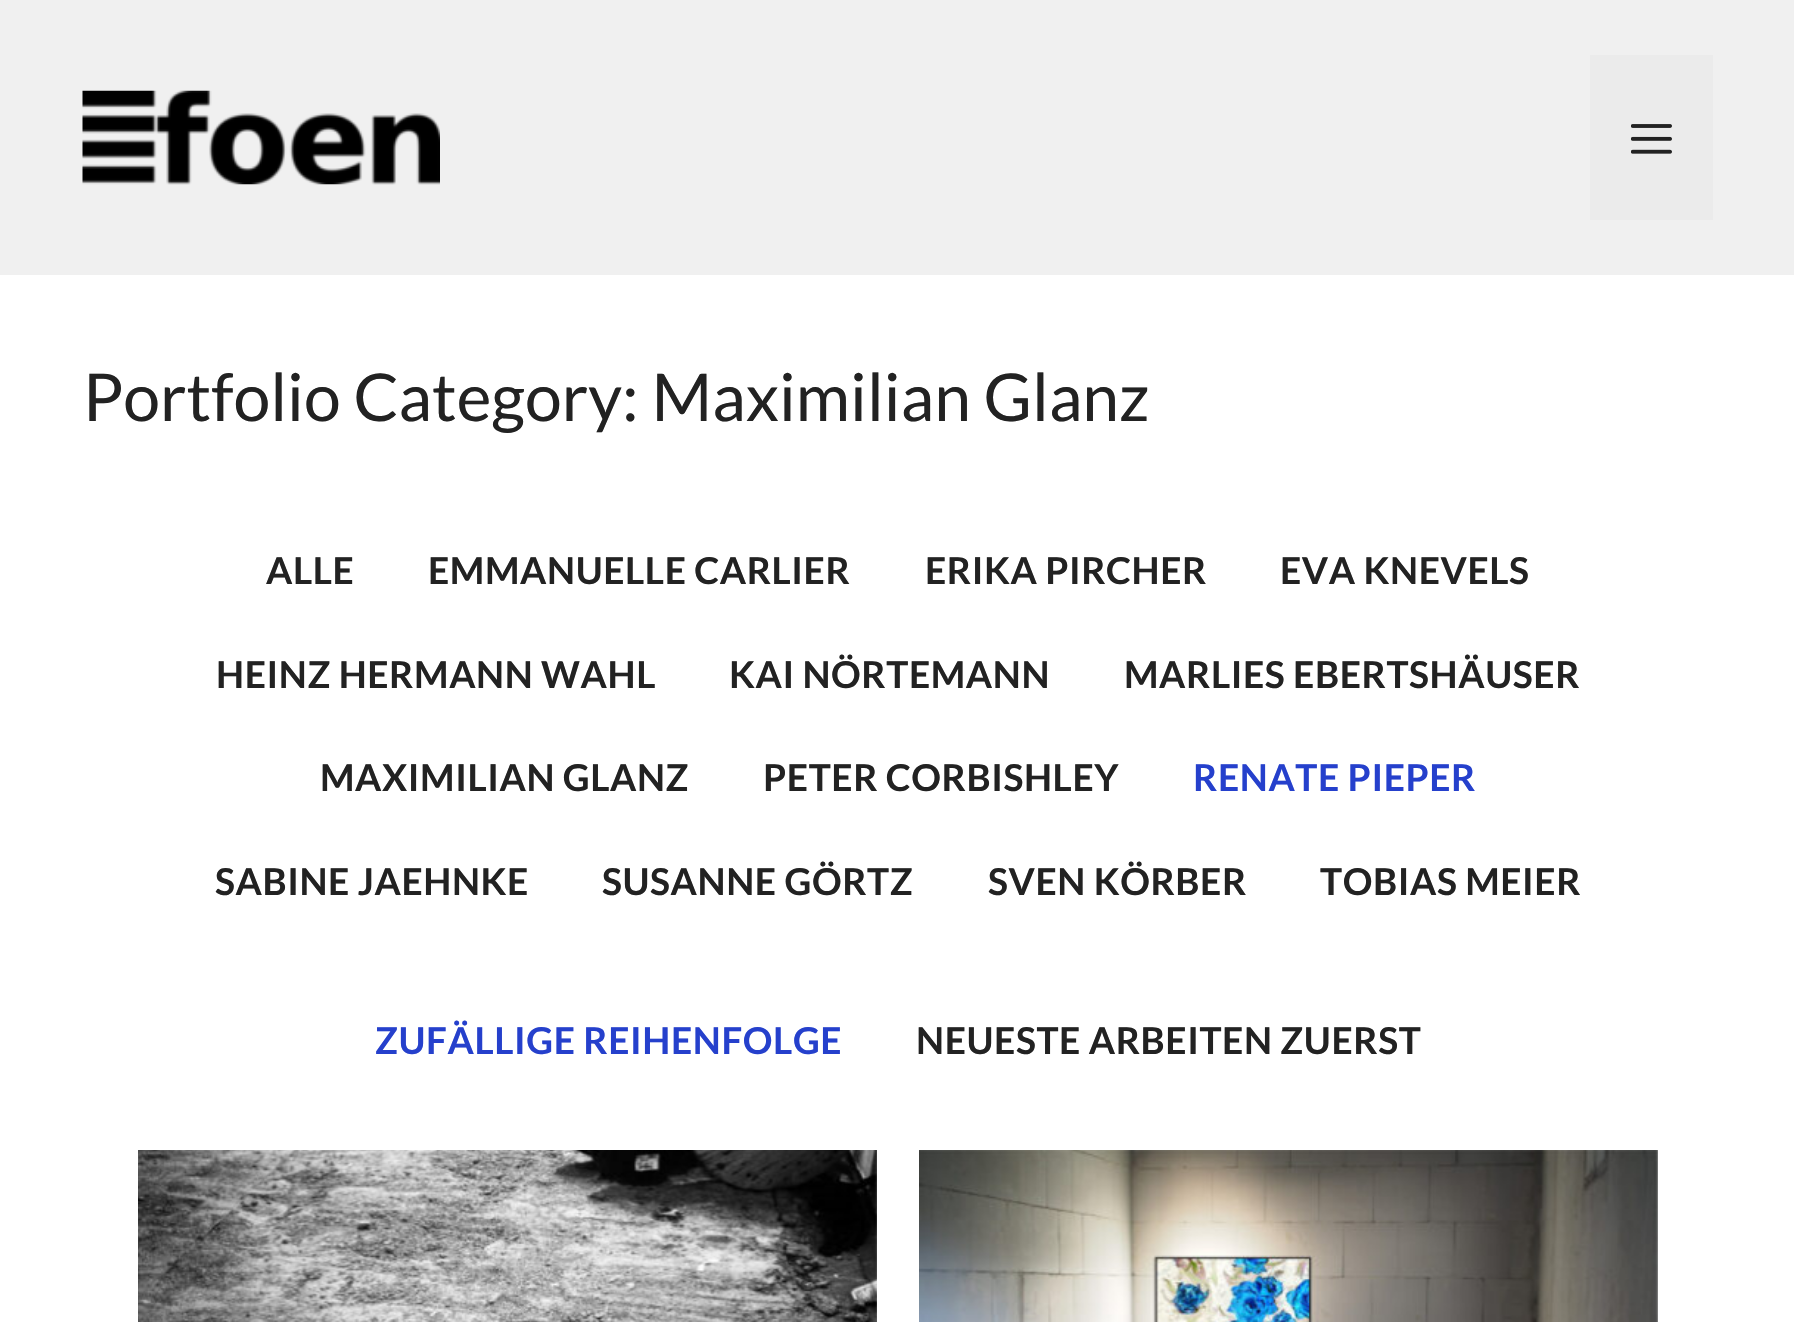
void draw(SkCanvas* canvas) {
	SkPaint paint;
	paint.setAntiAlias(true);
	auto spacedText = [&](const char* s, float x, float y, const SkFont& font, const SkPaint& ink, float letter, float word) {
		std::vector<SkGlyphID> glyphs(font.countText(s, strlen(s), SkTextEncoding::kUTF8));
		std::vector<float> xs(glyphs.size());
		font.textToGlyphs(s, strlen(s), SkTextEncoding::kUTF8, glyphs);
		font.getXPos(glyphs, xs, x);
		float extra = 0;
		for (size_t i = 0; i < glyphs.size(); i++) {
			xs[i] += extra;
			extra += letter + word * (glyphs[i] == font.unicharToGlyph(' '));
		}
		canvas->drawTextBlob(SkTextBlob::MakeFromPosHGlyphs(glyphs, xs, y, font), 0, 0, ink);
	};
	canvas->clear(0xffffffff);
	paint.setColor(0xfff0f0f0);
	canvas->drawRect(SkRect::MakeXYWH(0, 0, 1794, 275), paint);
	canvas->drawImageRect(SkImages::DeferredFromEncodedData(SkData::MakeFromFileName("img1.png")), SkRect::MakeXYWH(82, 90, 358, 95), SkSamplingOptions());
	paint.setColor(0xffebebeb);
	canvas->drawRect(SkRect::MakeXYWH(1590, 55, 123, 165), paint);
	canvas->drawImageRect(SkImages::DeferredFromEncodedData(SkData::MakeFromFileName("img2.png")), SkRect::MakeXYWH(1631, 124, 41, 30), SkSamplingOptions());
	SkFont f1(fontMgr->matchFamilyStyle("Lato", SkFontStyle::Normal()), 66);
	f1.setSubpixel(true);
	paint.setColor(0xff222222);
	canvas->drawString("Portfolio Category: Maximilian Glanz", 83, 421, f1, paint);
	SkFont f2(fontMgr->matchFamilyStyle("Lato", SkFontStyle::Bold()), 37.1);
	f2.setSubpixel(true);
	spacedText("ALLE", 266, 584, f2, paint, 0.6, 0);
	spacedText("EMMANUELLE CARLIER", 428, 584, f2, paint, 0.6, 0);
	spacedText("ERIKA PIRCHER", 925, 584, f2, paint, 0.6, 0);
	spacedText("EVA KNEVELS", 1280, 584, f2, paint, 0.6, 0);
	spacedText("HEINZ HERMANN WAHL", 216, 688, f2, paint, 0.6, 0);
	spacedText("KAI NÖRTEMANN", 729, 688, f2, paint, 0.6, 0);
	spacedText("MARLIES EBERTSHÄUSER", 1124, 688, f2, paint, 0.6, 0);
	spacedText("MAXIMILIAN GLANZ", 320, 791, f2, paint, 0.6, 0);
	spacedText("PETER CORBISHLEY", 763, 791, f2, paint, 0.6, 0);
	paint.setColor(0xff2540cc);
	spacedText("RENATE PIEPER", 1193, 791, f2, paint, 0.6, 0);
	paint.setColor(0xff222222);
	spacedText("SABINE JAEHNKE", 215, 895, f2, paint, 0.6, 0);
	spacedText("SUSANNE GÖRTZ", 602, 895, f2, paint, 0.6, 0);
	spacedText("SVEN KÖRBER", 988, 895, f2, paint, 0.6, 0);
	spacedText("TOBIAS MEIER", 1320, 895, f2, paint, 0.6, 0);
	paint.setColor(0xff2540cc);
	spacedText("ZUFÄLLIGE REIHENFOLGE", 375, 1054, f2, paint, 0.6, 0);
	paint.setColor(0xff222222);
	spacedText("NEUESTE ARBEITEN ZUERST", 916, 1054, f2, paint, 0.6, 0);
	canvas->drawImageRect(SkImages::DeferredFromEncodedData(SkData::MakeFromFileName("img3.png")), SkRect::MakeXYWH(138, 1150, 739, 172), SkSamplingOptions());
	canvas->drawImageRect(SkImages::DeferredFromEncodedData(SkData::MakeFromFileName("img4.png")), SkRect::MakeXYWH(919, 1150, 739, 172), SkSamplingOptions());
}
